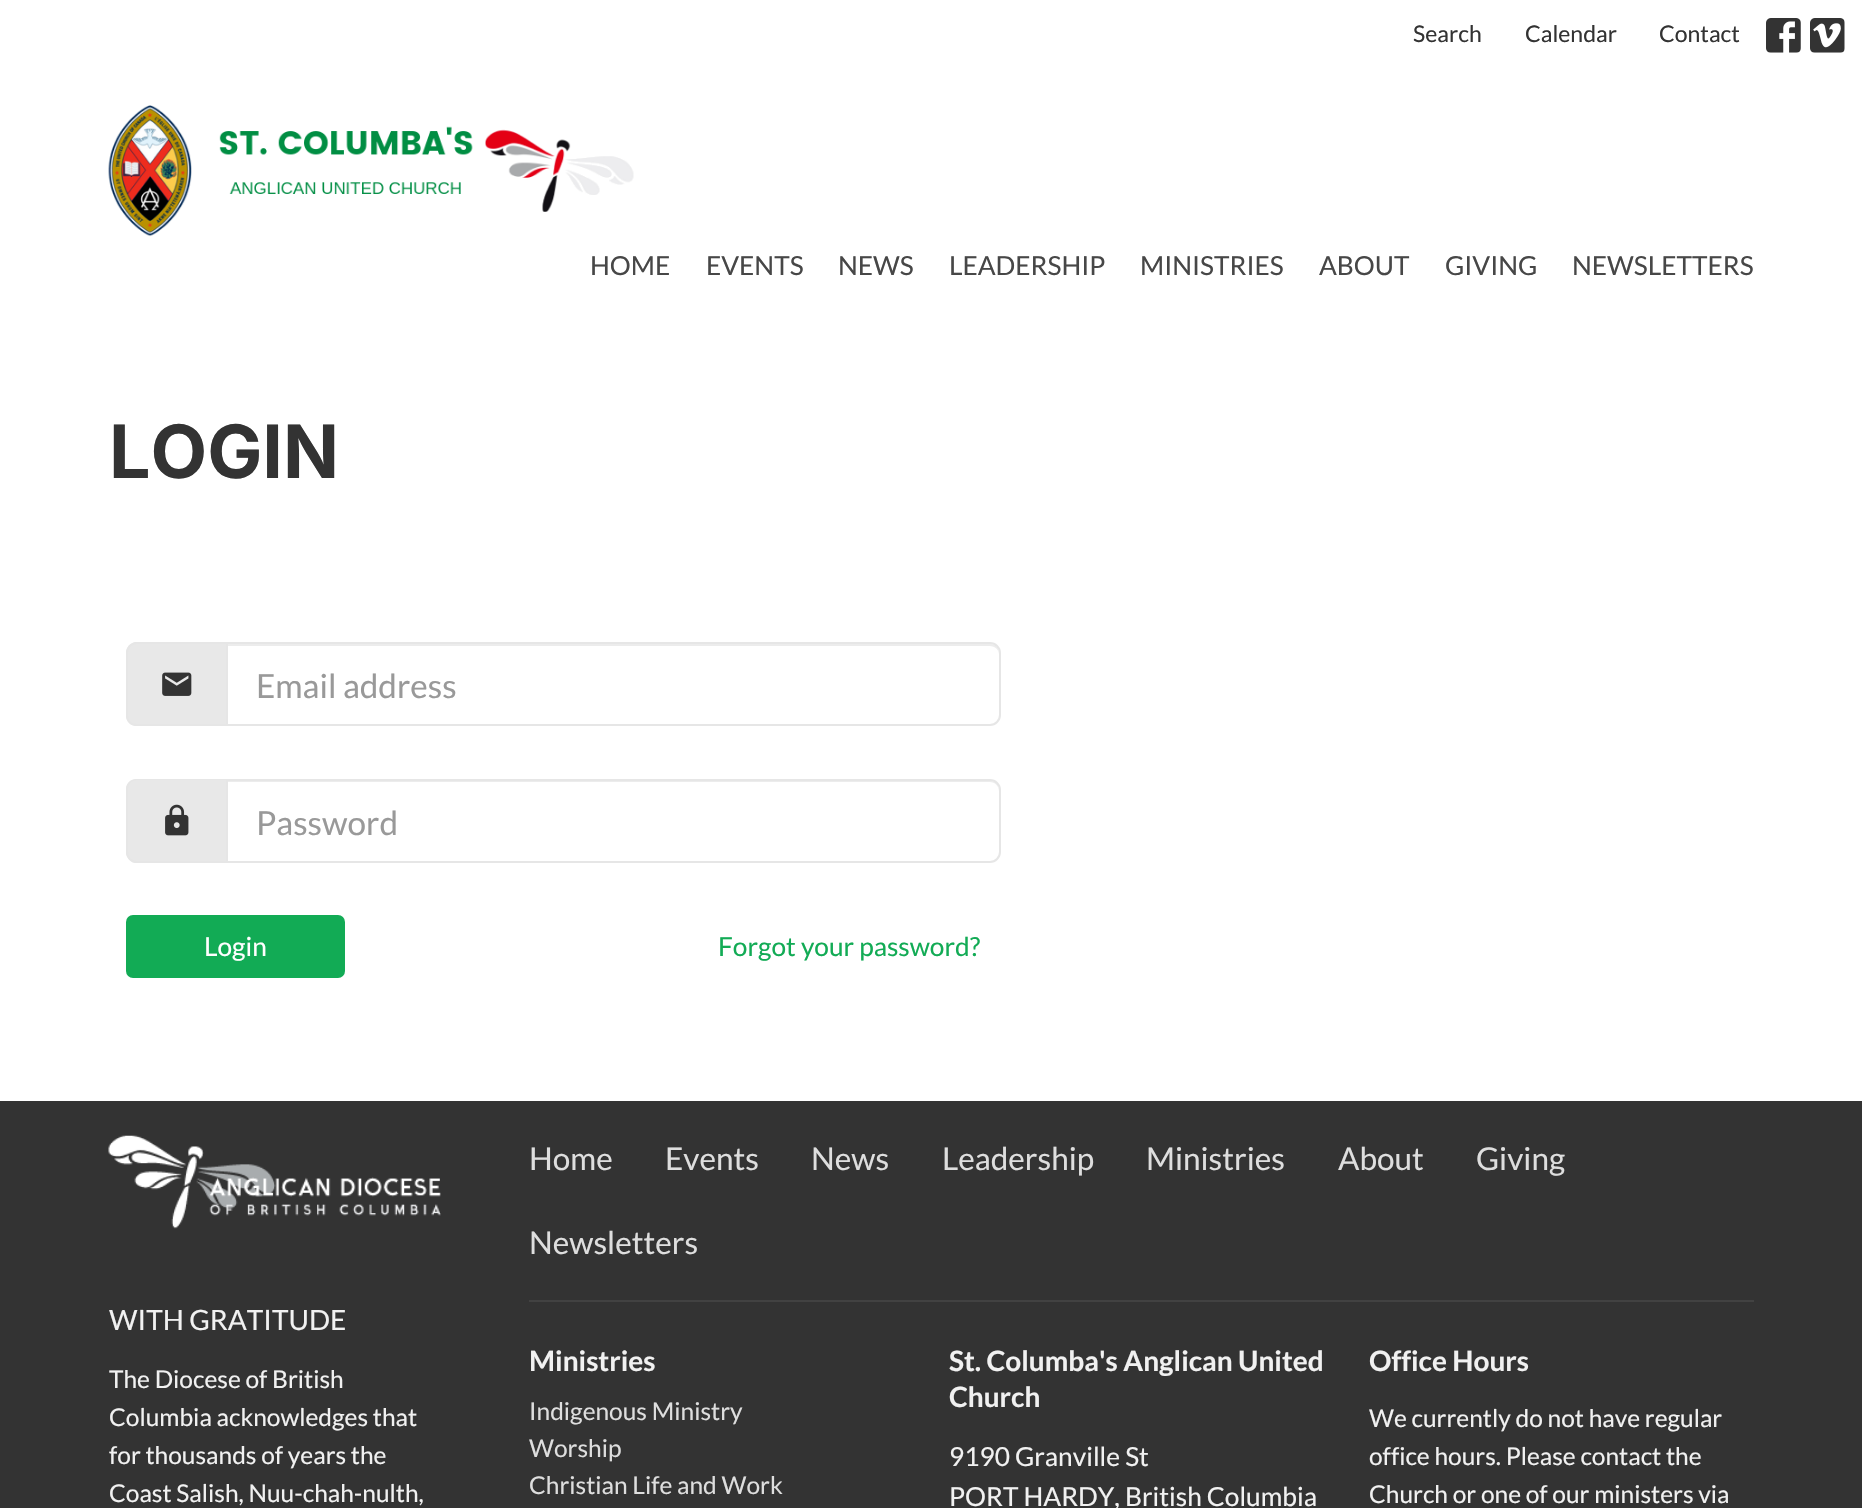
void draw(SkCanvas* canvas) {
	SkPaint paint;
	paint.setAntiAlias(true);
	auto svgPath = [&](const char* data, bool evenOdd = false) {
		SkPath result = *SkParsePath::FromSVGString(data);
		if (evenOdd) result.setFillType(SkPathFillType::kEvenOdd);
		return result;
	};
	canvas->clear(0xffffffff);
	SkFont f1(fontMgr->matchFamilyStyle("Lato", SkFontStyle::Normal()), 23);
	f1.setSubpixel(true);
	paint.setColor(0xff333333);
	canvas->drawString("Search", 1413, 42, f1, paint);
	canvas->drawString("Calendar", 1525, 42, f1, paint);
	canvas->drawString("Contact", 1659, 42, f1, paint);
	canvas->drawImageRect(SkImages::DeferredFromEncodedData(SkData::MakeFromFileName("img1.png")), SkRect::MakeXYWH(1766, 18, 35, 35), SkSamplingOptions());
	canvas->drawImageRect(SkImages::DeferredFromEncodedData(SkData::MakeFromFileName("img2.png")), SkRect::MakeXYWH(1810, 18, 35, 35), SkSamplingOptions());
	canvas->drawImageRect(SkImages::DeferredFromEncodedData(SkData::MakeFromFileName("img3.png")), SkRect::MakeXYWH(108, 105, 526, 132), SkSamplingOptions());
	SkFont f2(fontMgr->matchFamilyStyle("Lato", SkFontStyle::Normal()), 26.25);
	f2.setSubpixel(true);
	paint.setColor(0xff474747);
	canvas->drawString("HOME", 590, 275, f2, paint);
	canvas->drawString("EVENTS", 706, 275, f2, paint);
	canvas->drawString("NEWS", 838, 275, f2, paint);
	canvas->drawString("LEADERSHIP", 949, 275, f2, paint);
	canvas->drawString("MINISTRIES", 1140, 275, f2, paint);
	canvas->drawString("ABOUT", 1319, 275, f2, paint);
	canvas->drawString("GIVING", 1445, 275, f2, paint);
	canvas->drawString("NEWSLETTERS", 1572, 275, f2, paint);
	SkFont f3(fontMgr->matchFamilyStyle("Inter", SkFontStyle::Bold()), 73.5);
	f3.setSubpixel(true);
	paint.setColor(0xff333333);
	canvas->drawString("LOGIN", 109, 478, f3, paint);
	paint.setColor(0xffe8e8e8);
	canvas->drawPath(svgPath("M137 642H226V726H137C131 726 126 721 126 715V653C126 647 131 642 137 642Z"), paint);
	paint.setColor(0xffe6e6e6);
	canvas->drawPath(svgPath("M136 642H226V726H136C131 726 126 722 126 716V653C126 647 131 642 136 642ZM136 644H226V724H136C132 724 128 721 128 716V653C128 648 132 644 136 644Z", true), paint);
	canvas->drawImageRect(SkImages::DeferredFromEncodedData(SkData::MakeFromFileName("img4.png")), SkRect::MakeXYWH(162, 672, 30, 24), SkSamplingOptions());
	paint.setColor(0xffececec);
	canvas->drawPath(svgPath("M228 646H990C995 646 999 650 999 654V653C999 648 995 644 990 644H228Z"), paint);
	paint.setStroke(true);
	paint.setStrokeWidth(2);
	paint.setColor(0xffe6e6e6);
	canvas->drawPath(svgPath("M227 643H990C995.5 643 1000 647.5 1000 653V715C1000 720.5 995.5 725 990 725H227Z"), paint);
	SkFont f4(fontMgr->matchFamilyStyle("Lato", SkFontStyle::Normal()), 33.25);
	f4.setSubpixel(true);
	paint.setStroke(false);
	paint.setColor(0xff999999);
	canvas->drawString("Email address", 256, 698, f4, paint);
	paint.setColor(0xffe8e8e8);
	canvas->drawPath(svgPath("M137 779H226V863H137C131 863 126 858 126 852V790C126 784 131 779 137 779Z"), paint);
	paint.setColor(0xffe6e6e6);
	canvas->drawPath(svgPath("M136 779H226V863H136C131 863 126 858 126 852V789C126 783 131 779 136 779ZM136 780H226V861H136C132 861 128 857 128 852V789C128 784 132 780 136 780Z", true), paint);
	canvas->drawImageRect(SkImages::DeferredFromEncodedData(SkData::MakeFromFileName("img5.png")), SkRect::MakeXYWH(165, 804, 24, 32), SkSamplingOptions());
	paint.setColor(0xffececec);
	canvas->drawPath(svgPath("M228 782H990C995 782 999 786 999 791V790C999 785 995 781 990 781H228Z"), paint);
	paint.setStroke(true);
	paint.setColor(0xffe6e6e6);
	canvas->drawPath(svgPath("M227 780H990C995.5 780 1000 784.5 1000 790V852C1000 857.5 995.5 862 990 862H227Z"), paint);
	paint.setStroke(false);
	paint.setColor(0xff999999);
	canvas->drawString("Password", 256, 835, f4, paint);
	paint.setColor(0xff12ab55);
	canvas->drawRoundRect(SkRect::MakeXYWH(126, 915, 219, 63), 7, 7, paint);
	paint.setColor(0xffffffff);
	canvas->drawString("Login", 204, 956, f2, paint);
	paint.setColor(0xff12ab55);
	canvas->drawString("Forgot your password?", 718, 956, f2, paint);
	paint.setColor(0xff333333);
	canvas->drawRect(SkRect::MakeXYWH(0, 1101, 1862, 407), paint);
	canvas->drawImageRect(SkImages::DeferredFromEncodedData(SkData::MakeFromFileName("img6.png")), SkRect::MakeXYWH(108, 1135, 333, 94), SkSamplingOptions());
	SkFont f5(fontMgr->matchFamilyStyle("Lato", SkFontStyle::Normal()), 28);
	f5.setSubpixel(true);
	paint.setColor(0xfff1f1f1);
	canvas->drawString("WITH GRATITUDE", 109, 1330, f5, paint);
	SkFont f6(fontMgr->matchFamilyStyle("Lato", SkFontStyle::Normal()), 24.5);
	f6.setSubpixel(true);
	canvas->drawString("The Diocese of British", 109, 1388, f6, paint);
	canvas->drawString("Columbia acknowledges that", 109, 1426, f6, paint);
	canvas->drawString("for thousands of years the", 109, 1464, f6, paint);
	canvas->drawString("Coast Salish, Nuu-chah-nulth,", 109, 1502, f6, paint);
	SkFont f7(fontMgr->matchFamilyStyle("Lato", SkFontStyle::Normal()), 31.5);
	f7.setSubpixel(true);
	paint.setColor(0xffdedede);
	canvas->drawString("Home", 529, 1170, f7, paint);
	canvas->drawString("Events", 665, 1170, f7, paint);
	canvas->drawString("News", 811, 1170, f7, paint);
	canvas->drawString("Leadership", 942, 1170, f7, paint);
	canvas->drawString("Ministries", 1146, 1170, f7, paint);
	canvas->drawString("About", 1338, 1170, f7, paint);
	canvas->drawString("Giving", 1476, 1170, f7, paint);
	canvas->drawString("Newsletters", 529, 1254, f7, paint);
	paint.setColor(0xff424242);
	canvas->drawRect(SkRect::MakeXYWH(529, 1300, 1225, 2), paint);
	SkFont f8(fontMgr->matchFamilyStyle("Lato", SkFontStyle::Bold()), 28);
	f8.setSubpixel(true);
	paint.setColor(0xfff1f1f1);
	canvas->drawString("Ministries", 529, 1371, f8, paint);
	paint.setColor(0xffdedede);
	canvas->drawString("Indigenous Ministry", 529, 1420, f6, paint);
	canvas->drawString("Worship", 529, 1457, f6, paint);
	canvas->drawString("Christian Life and Work", 529, 1494, f6, paint);
	paint.setColor(0xfff1f1f1);
	canvas->drawString("St. Columba's Anglican United", 949, 1371, f8, paint);
	canvas->drawString("Church", 949, 1407, f8, paint);
	canvas->drawString("9190 Granville St", 949, 1466, f2, paint);
	canvas->drawString("PORT HARDY, British Columbia", 949, 1506, f2, paint);
	canvas->drawString("Office Hours", 1369, 1371, f8, paint);
	canvas->drawString("We currently do not have regular", 1369, 1427, f6, paint);
	canvas->drawString("office hours. Please contact the", 1369, 1465, f6, paint);
	canvas->drawString("Church or one of our ministers via", 1369, 1503, f6, paint);
}
